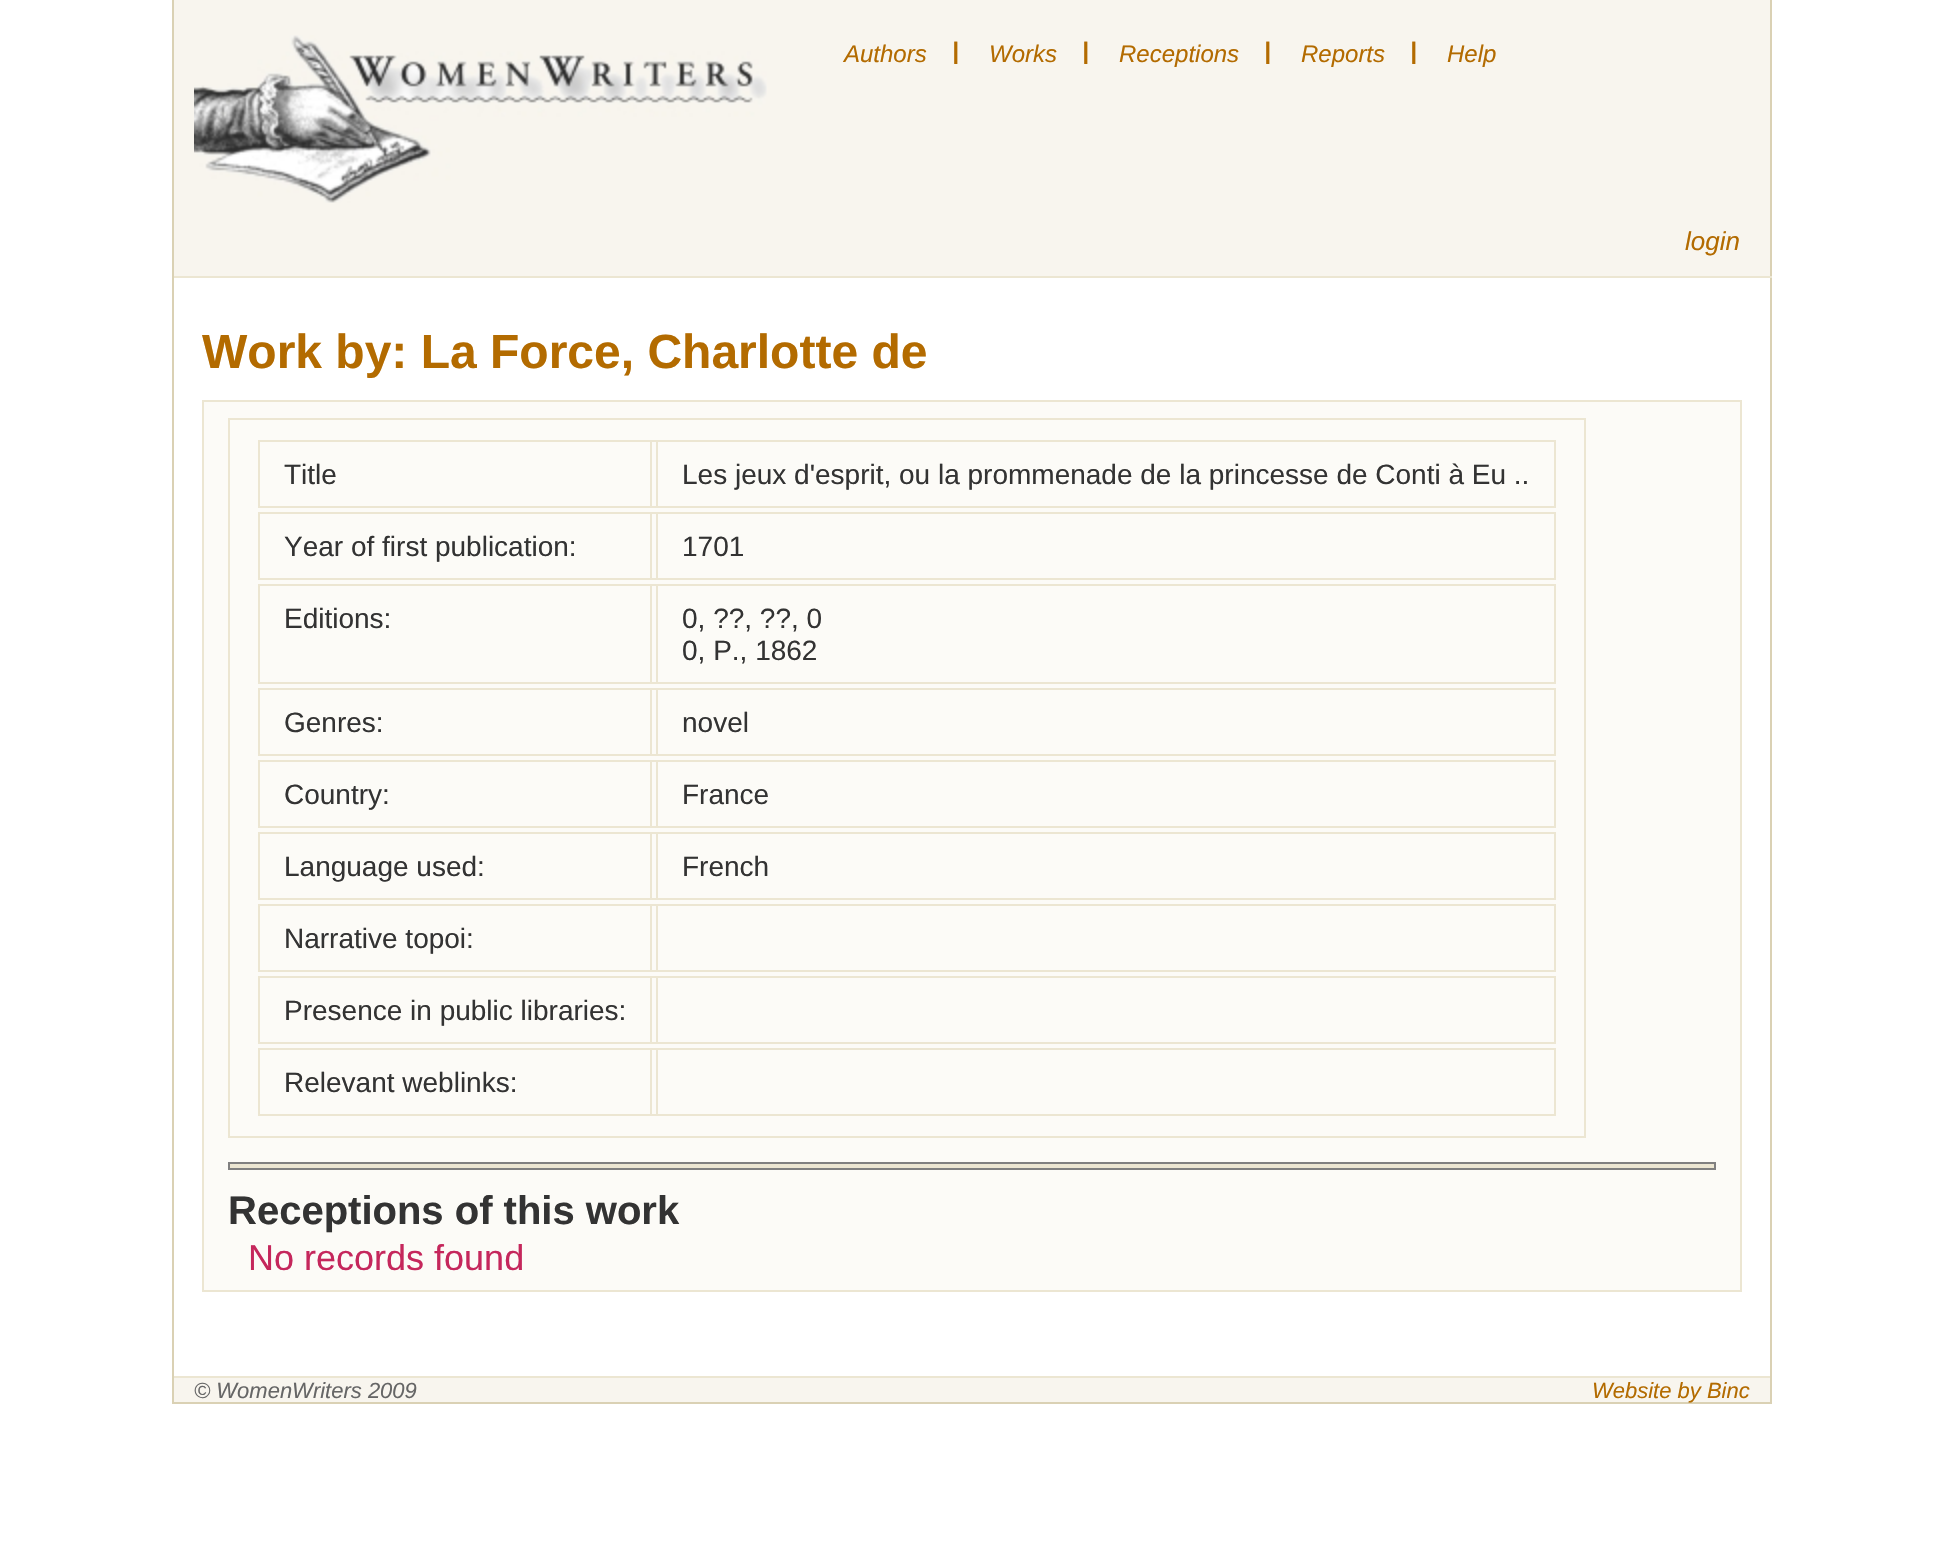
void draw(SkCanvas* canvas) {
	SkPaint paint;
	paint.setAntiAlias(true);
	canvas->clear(0xffffffff);
	paint.setColor(0xfff8f5ee);
	canvas->drawRect(SkRect::MakeXYWH(174, 0, 1596, 276), paint);
	paint.setColor(0xffdad1b4);
	canvas->drawRect(SkRect::MakeXYWH(1770, 0, 2, 1376), paint);
	paint.setColor(0xffece6d2);
	canvas->drawRect(SkRect::MakeXYWH(172, 276, 1600, 2), paint);
	paint.setColor(0xffdad1b4);
	canvas->drawRect(SkRect::MakeXYWH(172, 0, 2, 1376), paint);
	canvas->drawImageRect(SkImages::DeferredFromEncodedData(SkData::MakeFromFileName("img1.png")), SkRect::MakeXYWH(194, 35, 573, 168), SkSamplingOptions());
	SkFont f1(fontMgr->matchFamilyStyle("Liberation Sans", SkFontStyle::Italic()), 24);
	f1.setSubpixel(true);
	paint.setColor(0xffb36b00);
	canvas->drawString("Authors", 844, 62, f1, paint);
	SkFont f2(fontMgr->matchFamilyStyle("Liberation Sans", SkFontStyle::BoldItalic()), 24);
	f2.setSubpixel(true);
	canvas->drawString("|", 952, 59, f2, paint);
	canvas->drawString("Works", 989, 62, f1, paint);
	canvas->drawString("|", 1082, 59, f2, paint);
	canvas->drawString("Receptions", 1119, 62, f1, paint);
	canvas->drawString("|", 1264, 59, f2, paint);
	canvas->drawString("Reports", 1301, 62, f1, paint);
	canvas->drawString("|", 1410, 59, f2, paint);
	canvas->drawString("Help", 1447, 62, f1, paint);
	SkFont f3(fontMgr->matchFamilyStyle("Liberation Sans", SkFontStyle::Italic()), 26);
	f3.setSubpixel(true);
	canvas->drawString("login", 1685, 250, f3, paint);
	SkFont f4(fontMgr->matchFamilyStyle("Liberation Sans", SkFontStyle::Bold()), 48);
	f4.setSubpixel(true);
	canvas->drawString("Work by: La Force, Charlotte de", 202, 368, f4, paint);
	paint.setColor(0xfffcfbf7);
	canvas->drawRect(SkRect::MakeXYWH(203, 401, 1538, 890), paint);
	paint.setStroke(true);
	paint.setStrokeWidth(2);
	paint.setColor(0xffece6d2);
	canvas->drawRect(SkRect::MakeXYWH(203, 401, 1538, 890), paint);
	canvas->drawRect(SkRect::MakeXYWH(229, 419, 1356, 718), paint);
	canvas->drawRect(SkRect::MakeXYWH(259, 441, 1296, 66), paint);
	canvas->drawRect(SkRect::MakeXYWH(259, 441, 392, 66), paint);
	SkFont f5(fontMgr->matchFamilyStyle("Liberation Sans", SkFontStyle::Normal()), 28);
	f5.setSubpixel(true);
	paint.setStroke(false);
	paint.setColor(0xff333333);
	canvas->drawString("Title", 284, 484, f5, paint);
	paint.setStroke(true);
	paint.setColor(0xffece6d2);
	canvas->drawRect(SkRect::MakeXYWH(657, 441, 898, 66), paint);
	paint.setStroke(false);
	paint.setColor(0xff333333);
	canvas->drawString("Les jeux d'esprit, ou la prommenade de la princesse de Conti à Eu ..", 682, 484, f5, paint);
	paint.setStroke(true);
	paint.setColor(0xffece6d2);
	canvas->drawRect(SkRect::MakeXYWH(259, 513, 1296, 66), paint);
	canvas->drawRect(SkRect::MakeXYWH(259, 513, 392, 66), paint);
	paint.setStroke(false);
	paint.setColor(0xff333333);
	canvas->drawString("Year of first publication:", 284, 556, f5, paint);
	paint.setStroke(true);
	paint.setColor(0xffece6d2);
	canvas->drawRect(SkRect::MakeXYWH(657, 513, 898, 66), paint);
	paint.setStroke(false);
	paint.setColor(0xff333333);
	canvas->drawString("1701", 682, 556, f5, paint);
	paint.setStroke(true);
	paint.setColor(0xffece6d2);
	canvas->drawRect(SkRect::MakeXYWH(259, 585, 1296, 98), paint);
	canvas->drawRect(SkRect::MakeXYWH(259, 585, 392, 98), paint);
	paint.setStroke(false);
	paint.setColor(0xff333333);
	canvas->drawString("Editions:", 284, 628, f5, paint);
	paint.setStroke(true);
	paint.setColor(0xffece6d2);
	canvas->drawRect(SkRect::MakeXYWH(657, 585, 898, 98), paint);
	paint.setStroke(false);
	paint.setColor(0xff333333);
	canvas->drawString("0, ?\077, ?\077, 0", 682, 628, f5, paint);
	canvas->drawString("0, P., 1862", 682, 660, f5, paint);
	paint.setStroke(true);
	paint.setColor(0xffece6d2);
	canvas->drawRect(SkRect::MakeXYWH(259, 689, 1296, 66), paint);
	canvas->drawRect(SkRect::MakeXYWH(259, 689, 392, 66), paint);
	paint.setStroke(false);
	paint.setColor(0xff333333);
	canvas->drawString("Genres:", 284, 732, f5, paint);
	paint.setStroke(true);
	paint.setColor(0xffece6d2);
	canvas->drawRect(SkRect::MakeXYWH(657, 689, 898, 66), paint);
	paint.setStroke(false);
	paint.setColor(0xff333333);
	canvas->drawString("novel", 682, 732, f5, paint);
	paint.setStroke(true);
	paint.setColor(0xffece6d2);
	canvas->drawRect(SkRect::MakeXYWH(259, 761, 1296, 66), paint);
	canvas->drawRect(SkRect::MakeXYWH(259, 761, 392, 66), paint);
	paint.setStroke(false);
	paint.setColor(0xff333333);
	canvas->drawString("Country:", 284, 804, f5, paint);
	paint.setStroke(true);
	paint.setColor(0xffece6d2);
	canvas->drawRect(SkRect::MakeXYWH(657, 761, 898, 66), paint);
	paint.setStroke(false);
	paint.setColor(0xff333333);
	canvas->drawString("France", 682, 804, f5, paint);
	paint.setStroke(true);
	paint.setColor(0xffece6d2);
	canvas->drawRect(SkRect::MakeXYWH(259, 833, 1296, 66), paint);
	canvas->drawRect(SkRect::MakeXYWH(259, 833, 392, 66), paint);
	paint.setStroke(false);
	paint.setColor(0xff333333);
	canvas->drawString("Language used:", 284, 876, f5, paint);
	paint.setStroke(true);
	paint.setColor(0xffece6d2);
	canvas->drawRect(SkRect::MakeXYWH(657, 833, 898, 66), paint);
	paint.setStroke(false);
	paint.setColor(0xff333333);
	canvas->drawString("French", 682, 876, f5, paint);
	paint.setStroke(true);
	paint.setColor(0xffece6d2);
	canvas->drawRect(SkRect::MakeXYWH(259, 905, 1296, 66), paint);
	canvas->drawRect(SkRect::MakeXYWH(259, 905, 392, 66), paint);
	paint.setStroke(false);
	paint.setColor(0xff333333);
	canvas->drawString("Narrative topoi:", 284, 948, f5, paint);
	paint.setStroke(true);
	paint.setColor(0xffece6d2);
	canvas->drawRect(SkRect::MakeXYWH(657, 905, 898, 66), paint);
	canvas->drawRect(SkRect::MakeXYWH(259, 977, 1296, 66), paint);
	canvas->drawRect(SkRect::MakeXYWH(259, 977, 392, 66), paint);
	paint.setStroke(false);
	paint.setColor(0xff333333);
	canvas->drawString("Presence in public libraries:", 284, 1020, f5, paint);
	paint.setStroke(true);
	paint.setColor(0xffece6d2);
	canvas->drawRect(SkRect::MakeXYWH(657, 977, 898, 66), paint);
	canvas->drawRect(SkRect::MakeXYWH(259, 1049, 1296, 66), paint);
	canvas->drawRect(SkRect::MakeXYWH(259, 1049, 392, 66), paint);
	paint.setStroke(false);
	paint.setColor(0xff333333);
	canvas->drawString("Relevant weblinks:", 284, 1092, f5, paint);
	paint.setStroke(true);
	paint.setColor(0xffece6d2);
	canvas->drawRect(SkRect::MakeXYWH(657, 1049, 898, 66), paint);
	paint.setStroke(false);
	canvas->drawRect(SkRect::MakeXYWH(229, 1163, 1486, 6), paint);
	paint.setStroke(true);
	paint.setColor(0xff808080);
	canvas->drawRect(SkRect::MakeXYWH(229, 1163, 1486, 6), paint);
	SkFont f6(fontMgr->matchFamilyStyle("Liberation Sans", SkFontStyle::Bold()), 40);
	f6.setSubpixel(true);
	paint.setStroke(false);
	paint.setColor(0xff333333);
	canvas->drawString("Receptions of this work", 228, 1224, f6, paint);
	SkFont f7(fontMgr->matchFamilyStyle("Liberation Sans", SkFontStyle::Normal()), 36);
	f7.setSubpixel(true);
	paint.setColor(0xffc5275c);
	canvas->drawString("No records found", 248, 1270, f7, paint);
	paint.setColor(0xfff8f5ee);
	canvas->drawRect(SkRect::MakeXYWH(174, 1378, 1596, 24), paint);
	paint.setColor(0xffece6d2);
	canvas->drawRect(SkRect::MakeXYWH(172, 1376, 1600, 2), paint);
	paint.setColor(0xffdad1b4);
	canvas->drawRect(SkRect::MakeXYWH(1770, 1376, 2, 28), paint);
	canvas->drawRect(SkRect::MakeXYWH(172, 1402, 1600, 2), paint);
	canvas->drawRect(SkRect::MakeXYWH(172, 1376, 2, 28), paint);
	SkFont f8(fontMgr->matchFamilyStyle("Liberation Sans", SkFontStyle::Italic()), 22);
	f8.setSubpixel(true);
	paint.setColor(0xff666666);
	canvas->drawString("© WomenWriters 2009", 194, 1398, f8, paint);
	paint.setColor(0xffb36b00);
	canvas->drawString("Website by Binc", 1592, 1398, f8, paint);
}
